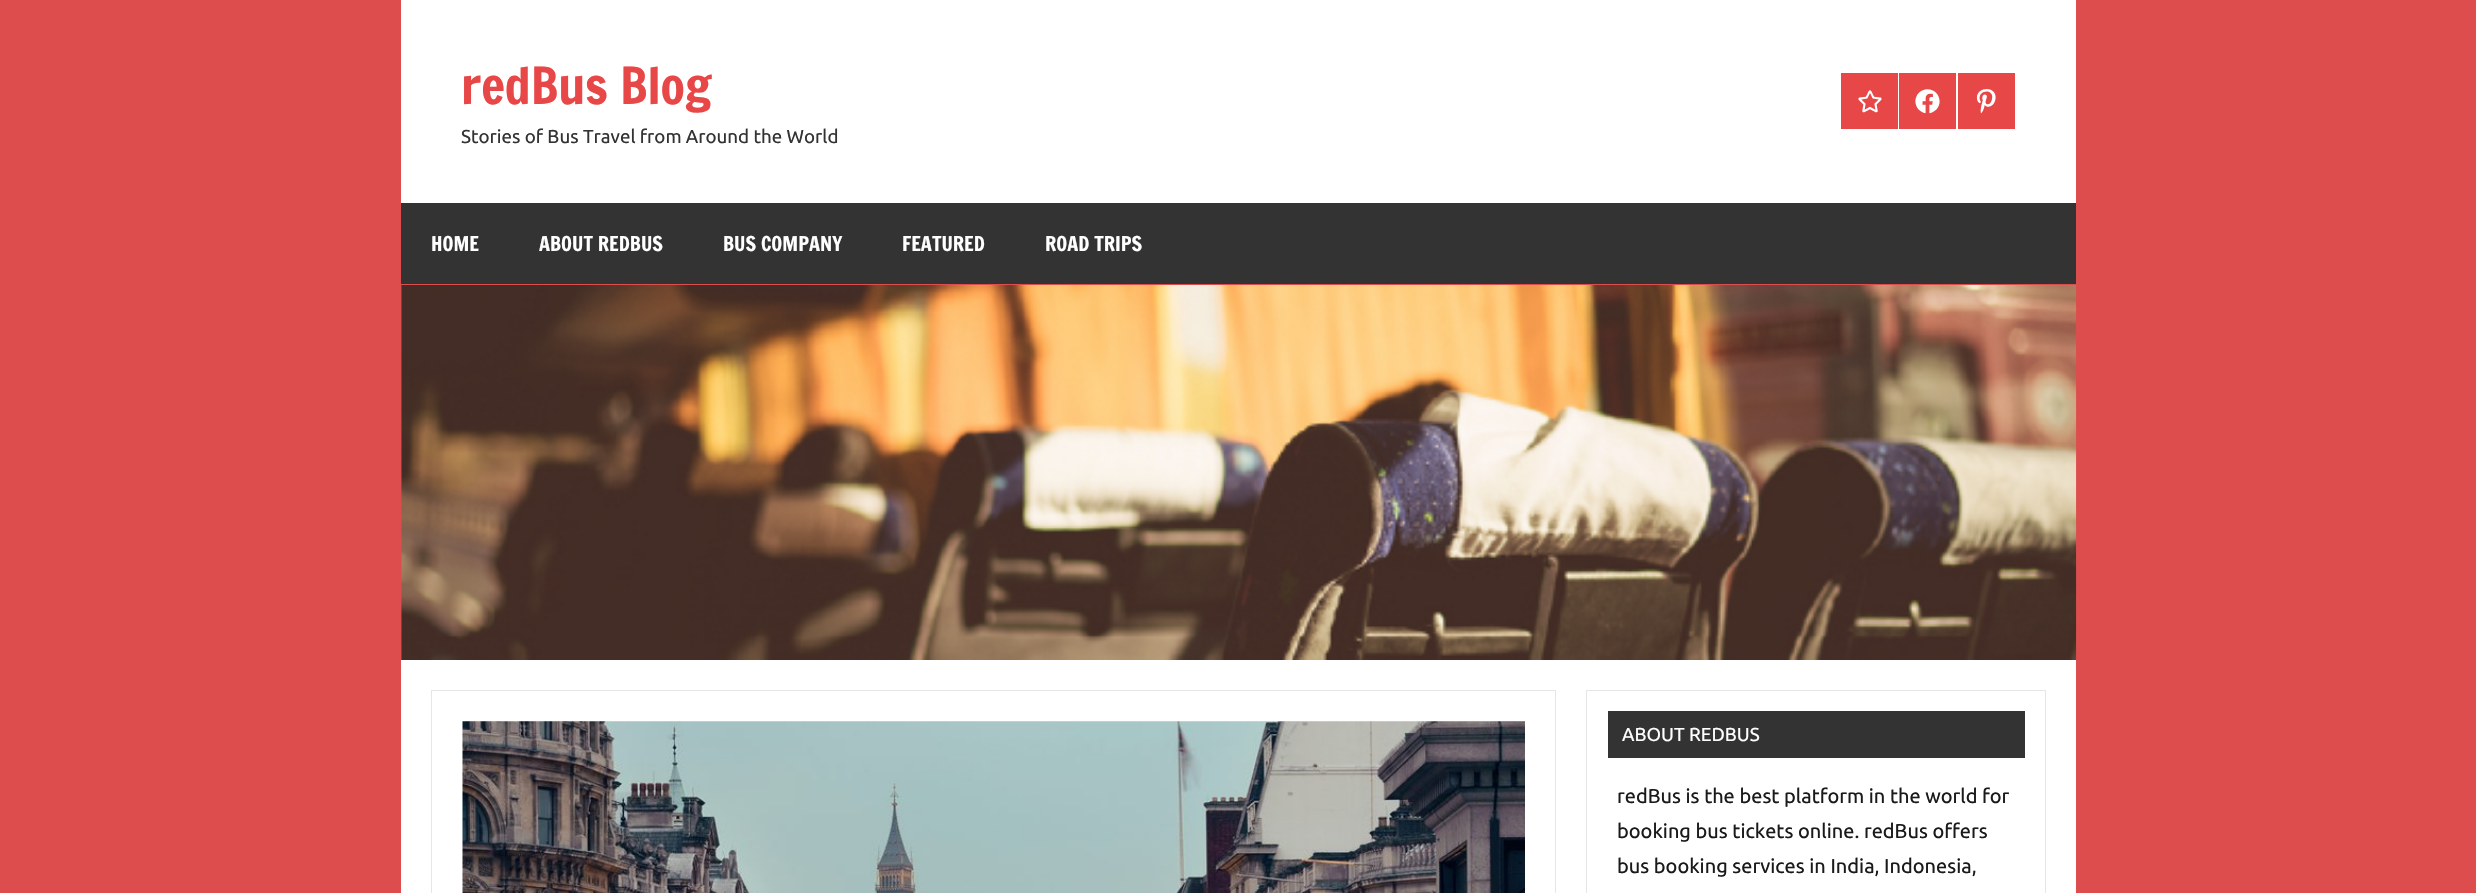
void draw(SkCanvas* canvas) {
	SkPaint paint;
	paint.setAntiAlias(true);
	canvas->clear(0xffdd4d4d);
	paint.setColor(0xffffffff);
	canvas->drawRect(SkRect::MakeXYWH(401, 0, 1675, 203), paint);
	SkFont f1(fontMgr->matchFamilyStyle("Francois One", SkFontStyle::Normal()), 50);
	f1.setSubpixel(true);
	paint.setColor(0xffe84747);
	canvas->drawString("redBus Blog", 461, 104, f1, paint);
	SkFont f2(fontMgr->matchFamilyStyle("Ubuntu", SkFontStyle::Normal()), 18.75);
	f2.setSubpixel(true);
	paint.setColor(0xff333333);
	canvas->drawString("Stories of Bus Travel from Around the World", 461, 143, f2, paint);
	paint.setColor(0xffe84747);
	canvas->drawRect(SkRect::MakeXYWH(1841, 73, 57, 56), paint);
	canvas->drawImageRect(SkImages::DeferredFromEncodedData(SkData::MakeFromFileName("img1.png")), SkRect::MakeXYWH(1858, 90, 24, 23), SkSamplingOptions());
	canvas->drawRect(SkRect::MakeXYWH(1899, 73, 57, 56), paint);
	canvas->drawImageRect(SkImages::DeferredFromEncodedData(SkData::MakeFromFileName("img2.png")), SkRect::MakeXYWH(1915, 89, 25, 25), SkSamplingOptions());
	canvas->drawRect(SkRect::MakeXYWH(1958, 73, 57, 56), paint);
	canvas->drawImageRect(SkImages::DeferredFromEncodedData(SkData::MakeFromFileName("img3.png")), SkRect::MakeXYWH(1976, 89, 20, 25), SkSamplingOptions());
	paint.setColor(0xff333333);
	canvas->drawRect(SkRect::MakeXYWH(401, 203, 1675, 81), paint);
	SkFont f3(fontMgr->matchFamilyStyle("Francois One", SkFontStyle::Normal()), 20);
	f3.setSubpixel(true);
	paint.setColor(0xffffffff);
	canvas->drawString("HOME", 431, 251, f3, paint);
	canvas->drawString("ABOUT REDBUS", 539, 251, f3, paint);
	canvas->drawString("BUS COMPANY", 723, 251, f3, paint);
	canvas->drawString("FEATURED", 902, 251, f3, paint);
	canvas->drawString("ROAD TRIPS", 1045, 251, f3, paint);
	canvas->drawImageRect(SkImages::DeferredFromEncodedData(SkData::MakeFromFileName("img4.png")), SkRect::MakeXYWH(401, 285, 1676, 375), SkSamplingOptions());
	canvas->drawRect(SkRect::MakeXYWH(401, 660, 1675, 233), paint);
	paint.setStroke(true);
	paint.setStrokeWidth(1);
	paint.setColor(0xffe6e6e6);
	canvas->drawRect(SkRect::MakeXYWH(431.5, 690.5, 1124, 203), paint);
	canvas->drawImageRect(SkImages::DeferredFromEncodedData(SkData::MakeFromFileName("img5.png")), SkRect::MakeXYWH(462, 721, 1063, 172), SkSamplingOptions());
	canvas->drawRect(SkRect::MakeXYWH(1586.5, 690.5, 459, 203), paint);
	paint.setStroke(false);
	paint.setColor(0xff333333);
	canvas->drawRect(SkRect::MakeXYWH(1608, 711, 417, 47), paint);
	paint.setColor(0xffffffff);
	canvas->drawString("ABOUT REDBUS", 1622, 741, f2, paint);
	SkFont f4(fontMgr->matchFamilyStyle("Ubuntu", SkFontStyle::Normal()), 20);
	f4.setSubpixel(true);
	paint.setColor(0xff1a1a1a);
	canvas->drawString("redBus is the best platform in the world for", 1617, 803, f4, paint);
	canvas->drawString("booking bus tickets online. redBus offers", 1617, 838, f4, paint);
	canvas->drawString("bus booking services in India, Indonesia,", 1617, 873, f4, paint);
}
